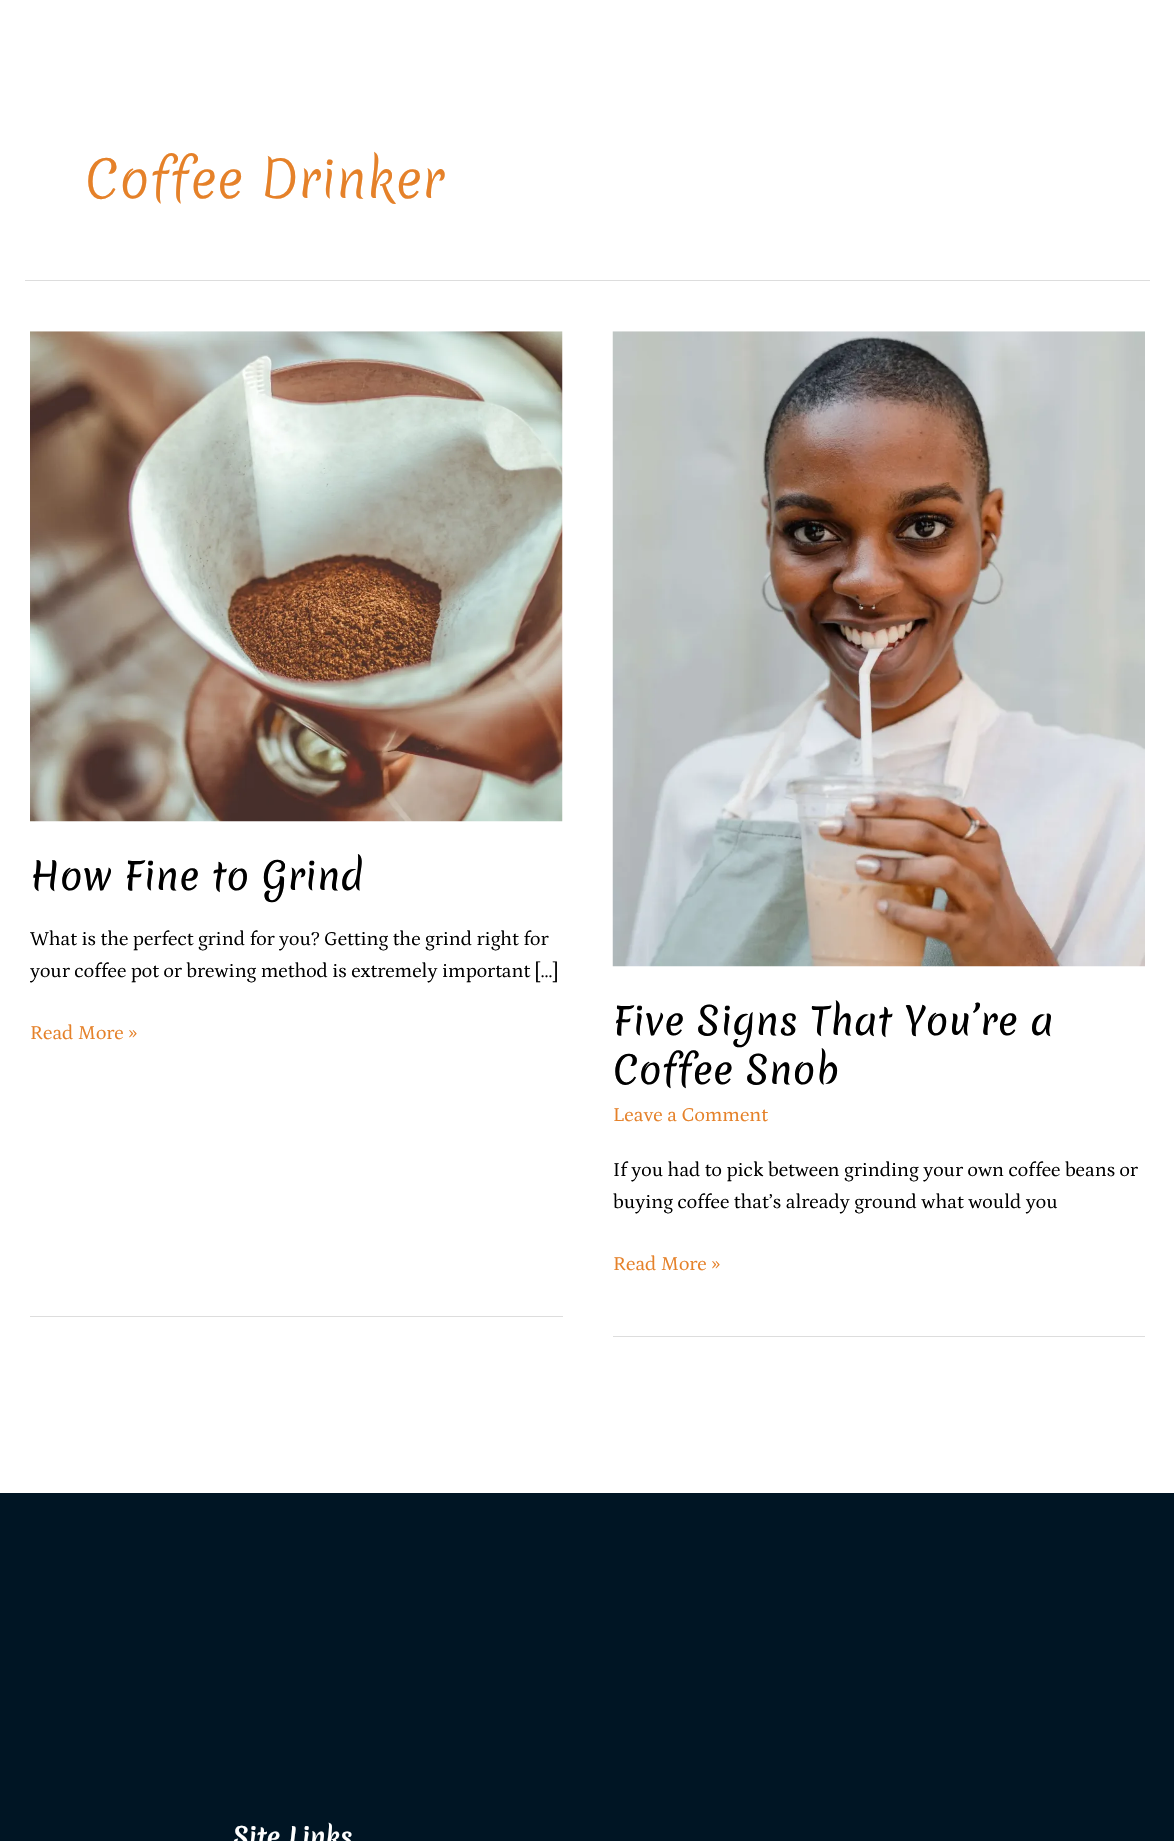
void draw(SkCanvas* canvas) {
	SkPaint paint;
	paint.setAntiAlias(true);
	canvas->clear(0xffffffff);
	paint.setColor(0xffdddddd);
	canvas->drawRect(SkRect::MakeXYWH(25, 280, 1125, 1), paint);
	SkFont f1(fontMgr->matchFamilyStyle("Merienda", SkFontStyle(300, SkFontStyle::kNormal_Width, SkFontStyle::kUpright_Slant)), 50);
	f1.setSubpixel(true);
	paint.setColor(0xffe58129);
	canvas->drawString("Coffee Drinker", 85, 198, f1, paint);
	paint.setColor(0xffdddddd);
	canvas->drawRect(SkRect::MakeXYWH(30, 1316, 533, 1), paint);
	canvas->drawImageRect(SkImages::DeferredFromEncodedData(SkData::MakeFromFileName("img1.png")), SkRect::MakeXYWH(30, 331, 533, 491), SkSamplingOptions());
	SkFont f2(fontMgr->matchFamilyStyle("Merienda", SkFontStyle::Normal()), 37.5);
	f2.setSubpixel(true);
	paint.setColor(0xff000000);
	canvas->drawString("How Fine to Grind", 30, 890, f2, paint);
	SkFont f3(fontMgr->matchFamilyStyle("Petrona", SkFontStyle::Normal()), 20);
	f3.setSubpixel(true);
	canvas->drawString("What is the perfect grind for you? Getting the grind right for", 30, 945, f3, paint);
	canvas->drawString("your coffee pot or brewing method is extremely important […]", 30, 977, f3, paint);
	paint.setColor(0xffe58129);
	canvas->drawString("Read More »", 30, 1039, f3, paint);
	paint.setColor(0xffdddddd);
	canvas->drawRect(SkRect::MakeXYWH(613, 1336, 532, 1), paint);
	canvas->drawImageRect(SkImages::DeferredFromEncodedData(SkData::MakeFromFileName("img2.png")), SkRect::MakeXYWH(612, 331, 533, 636), SkSamplingOptions());
	paint.setColor(0xff000000);
	canvas->drawString("Five Signs That You’re a", 613, 1035, f2, paint);
	canvas->drawString("Coffee Snob", 613, 1084, f2, paint);
	paint.setColor(0xffe58129);
	canvas->drawString("Leave a Comment", 613, 1121, f3, paint);
	paint.setColor(0xff000000);
	canvas->drawString("If you had to pick between grinding your own coffee beans or", 613, 1176, f3, paint);
	canvas->drawString("buying coffee that’s already ground what would you", 613, 1208, f3, paint);
	paint.setColor(0xffe58129);
	canvas->drawString("Read More »", 613, 1270, f3, paint);
	paint.setColor(0xff001524);
	canvas->drawRect(SkRect::MakeXYWH(0, 1493, 1174, 348), paint);
	SkFont f4(fontMgr->matchFamilyStyle("Merienda", SkFontStyle::Bold()), 25);
	f4.setSubpixel(true);
	paint.setColor(0xffffffff);
	canvas->drawString("Site Links", 233, 1846, f4, paint);
}
